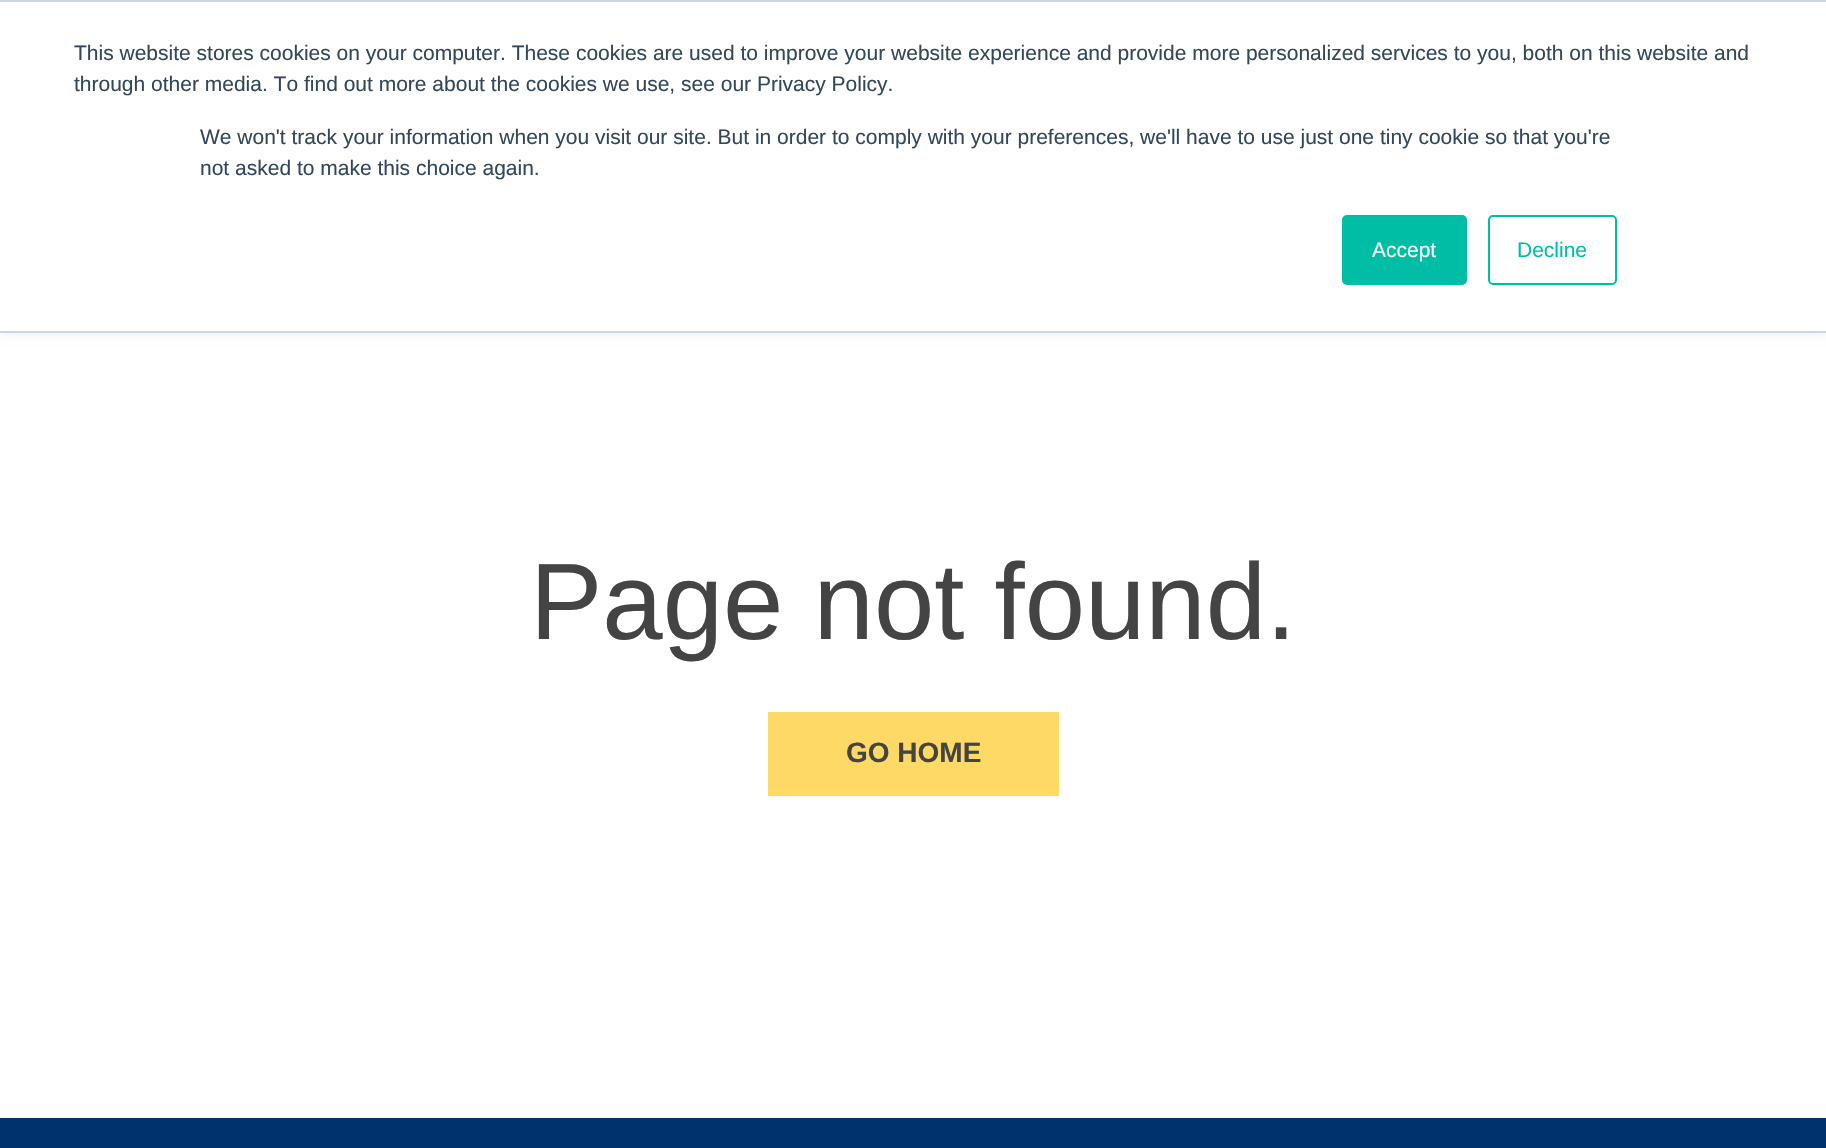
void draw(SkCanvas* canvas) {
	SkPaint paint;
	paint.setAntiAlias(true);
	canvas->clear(0xffffffff);
	paint.setColor(0xffeaf0f6);
	paint.setMaskFilter(SkMaskFilter::MakeBlur(kNormal_SkBlurStyle, 4.5));
	canvas->drawRect(SkRect::MakeXYWH(0, 2, 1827, 332), paint);
	paint.setMaskFilter(nullptr);
	paint.setColor(0xffffffff);
	canvas->drawRect(SkRect::MakeXYWH(0, 2, 1826, 329), paint);
	paint.setColor(0xffcbd6e2);
	canvas->drawRect(SkRect::MakeXYWH(0, 0, 1826, 2), paint);
	canvas->drawRect(SkRect::MakeXYWH(0, 331, 1826, 2), paint);
	SkFont f1(fontMgr->matchFamilyStyle("Liberation Sans", SkFontStyle::Normal()), 21);
	f1.setSubpixel(true);
	paint.setColor(0xff33475b);
	canvas->drawString("This website stores cookies on your computer. These cookies are used to improve your website experience and provide more personalized services to you, both on this website and", 74, 60, f1, paint);
	canvas->drawString("through other media. To find out more about the cookies we use, see our Privacy Policy.", 74, 91, f1, paint);
	canvas->drawString("We won't track your information when you visit our site. But in order to comply with your preferences, we'll have to use just one tiny cookie so that you're", 200, 144, f1, paint);
	canvas->drawString("not asked to make this choice again.", 200, 175, f1, paint);
	paint.setColor(0xff00bda5);
	canvas->drawRoundRect(SkRect::MakeXYWH(1343, 216, 123, 68), 4, 4, paint);
	paint.setStroke(true);
	paint.setStrokeWidth(2);
	canvas->drawRoundRect(SkRect::MakeXYWH(1343, 216, 123, 68), 4, 4, paint);
	paint.setStroke(false);
	paint.setColor(0xffffffff);
	canvas->drawString("Accept", 1372, 257, f1, paint);
	paint.setStroke(true);
	paint.setColor(0xff00bda5);
	canvas->drawRoundRect(SkRect::MakeXYWH(1489, 216, 127, 68), 4, 4, paint);
	paint.setStroke(false);
	canvas->drawString("Decline", 1517, 257, f1, paint);
	SkFont f2(fontMgr->matchFamilyStyle("Liberation Sans", SkFontStyle::Normal()), 108.5);
	f2.setSubpixel(true);
	paint.setColor(0xff444444);
	canvas->drawString("Page not found.", 530, 639, f2, paint);
	paint.setColor(0xffffd966);
	canvas->drawRect(SkRect::MakeXYWH(768, 712, 291, 84), paint);
	SkFont f3(fontMgr->matchFamilyStyle("Liberation Sans", SkFontStyle::Bold()), 28);
	f3.setSubpixel(true);
	paint.setColor(0xff444444);
	canvas->drawString("GO HOME", 846, 762, f3, paint);
	paint.setColor(0xff00326d);
	canvas->drawRect(SkRect::MakeXYWH(0, 1118, 1826, 30), paint);
}
